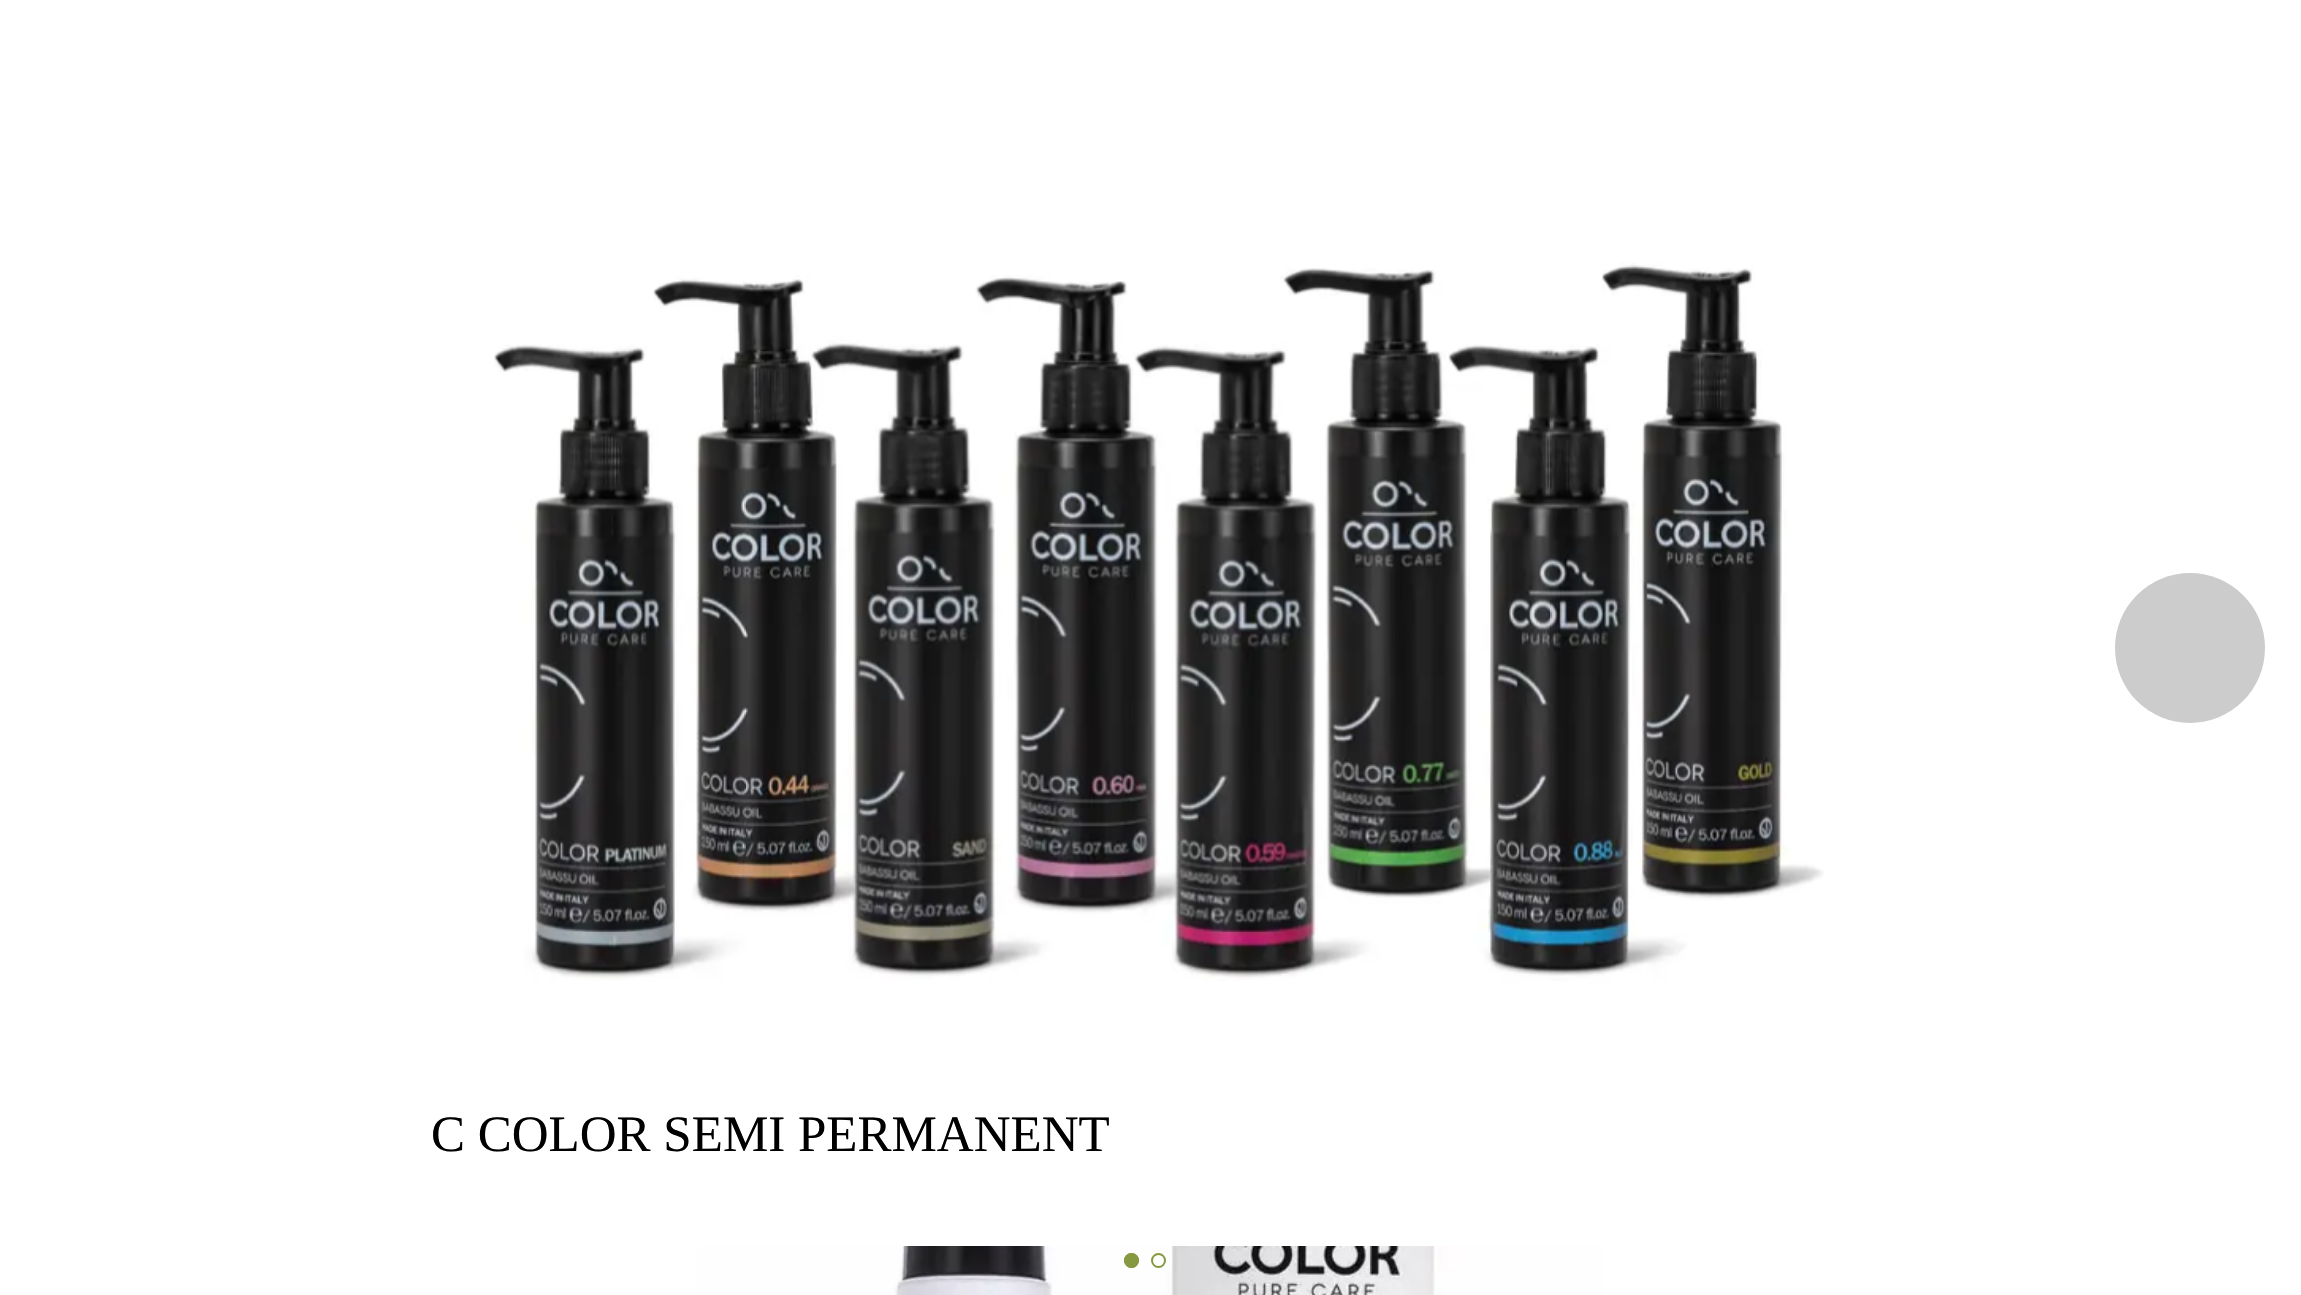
void draw(SkCanvas* canvas) {
	SkPaint paint;
	paint.setAntiAlias(true);
	canvas->clear(0xffffffff);
	canvas->drawImageRect(SkImages::DeferredFromEncodedData(SkData::MakeFromFileName("img1.png")), SkRect::MakeXYWH(416, 171, 1470, 896), SkSamplingOptions());
	SkFont f1(fontMgr->matchFamilyStyle("Liberation Serif", SkFontStyle::Normal()), 51);
	f1.setSubpixel(true);
	paint.setColor(0xff000000);
	canvas->drawString("C COLOR SEMI PERMANENT", 431, 1151, f1, paint);
	canvas->drawImageRect(SkImages::DeferredFromEncodedData(SkData::MakeFromFileName("img2.png")), SkRect::MakeXYWH(416, 1246, 1470, 49), SkSamplingOptions());
	paint.setColor(0xffcccccc);
	canvas->drawCircle(2190, 648, 75, paint);
	paint.setStroke(true);
	paint.setStrokeWidth(2);
	paint.setColor(0xff869941);
	canvas->drawCircle(1131.5, 1260.5, 6.5, paint);
	paint.setStroke(false);
	canvas->drawCircle(1131.5, 1260.5, 7.5, paint);
	paint.setStroke(true);
	canvas->drawCircle(1158.5, 1260.5, 6.5, paint);
}
